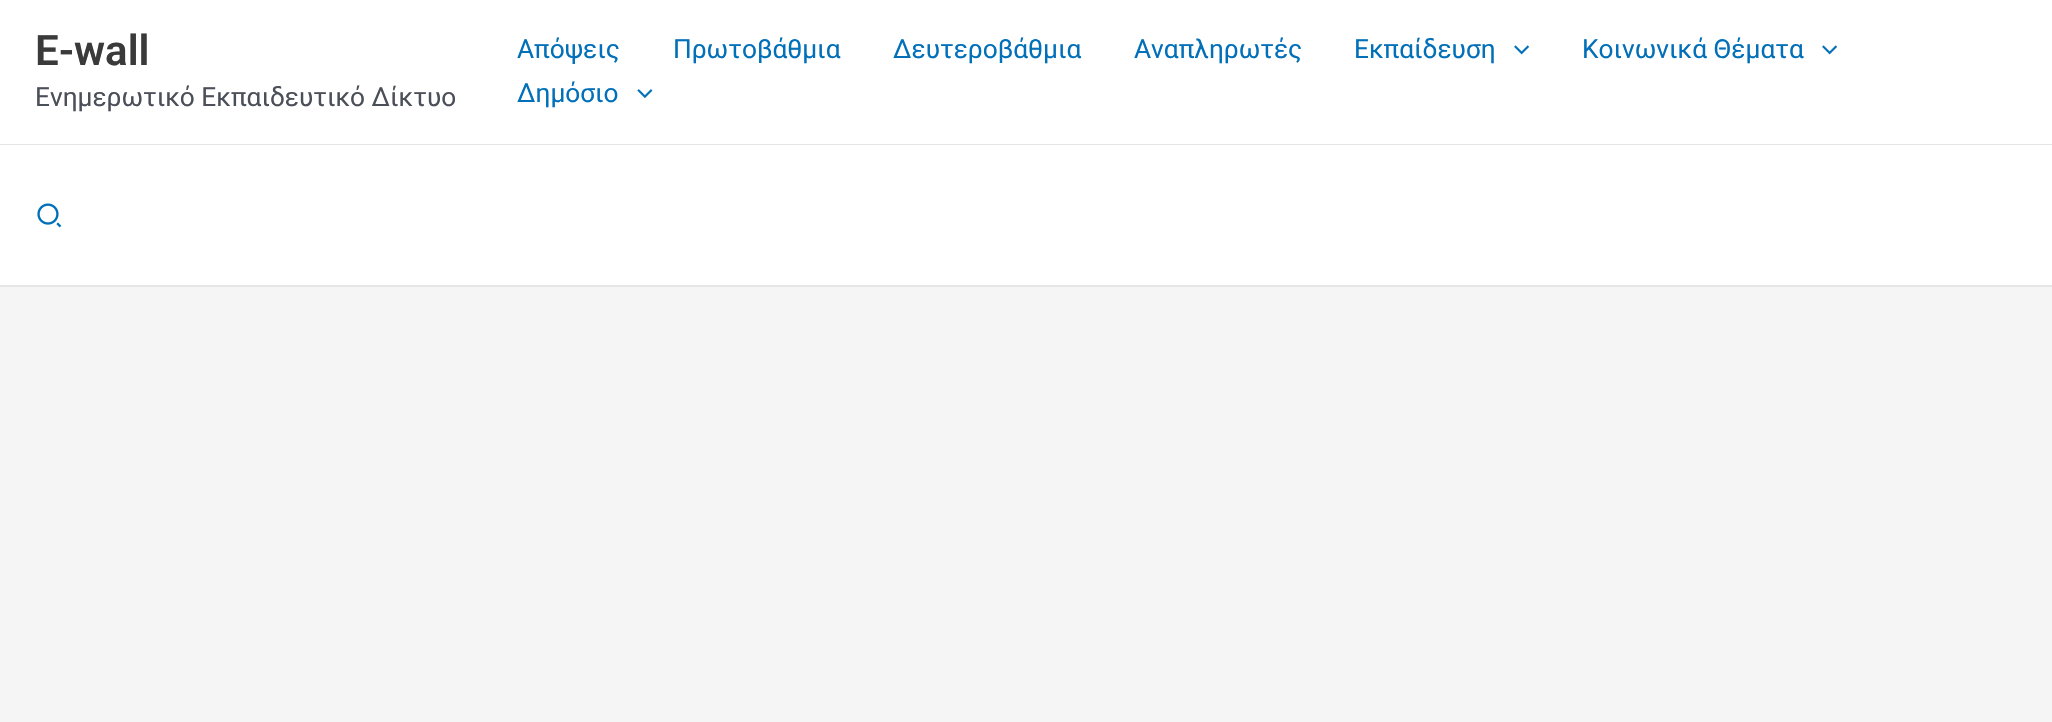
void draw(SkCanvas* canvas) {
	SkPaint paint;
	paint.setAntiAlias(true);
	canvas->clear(0xfff5f5f5);
	paint.setColor(0xffffffff);
	canvas->drawRect(SkRect::MakeXYWH(0, 0, 2052, 144), paint);
	paint.setColor(0xffe5e5e5);
	canvas->drawRect(SkRect::MakeXYWH(0, 144, 2052, 1), paint);
	SkFont f1(fontMgr->matchFamilyStyle("Roboto", SkFontStyle(600, SkFontStyle::kNormal_Width, SkFontStyle::kUpright_Slant)), 42);
	f1.setSubpixel(true);
	paint.setColor(0xff3a3a3a);
	canvas->drawString("E-wall", 35, 65, f1, paint);
	SkFont f2(fontMgr->matchFamilyStyle("Roboto", SkFontStyle::Normal()), 26.25);
	f2.setSubpixel(true);
	paint.setColor(0xff4b4f58);
	canvas->drawString("Ενημερωτικό Εκπαιδευτικό Δίκτυο", 35, 106, f2, paint);
	paint.setColor(0xff0170b9);
	canvas->drawString("Απόψεις", 517, 58, f2, paint);
	canvas->drawString("Πρωτοβάθμια", 673, 58, f2, paint);
	canvas->drawString("Δευτεροβάθμια", 893, 58, f2, paint);
	canvas->drawString("Αναπληρωτές", 1134, 58, f2, paint);
	canvas->drawString("Εκπαίδευση", 1354, 58, f2, paint);
	canvas->drawImageRect(SkImages::DeferredFromEncodedData(SkData::MakeFromFileName("img1.png")), SkRect::MakeXYWH(1514, 45, 16, 10), SkSamplingOptions());
	canvas->drawString("Κοινωνικά Θέματα", 1582, 58, f2, paint);
	canvas->drawImageRect(SkImages::DeferredFromEncodedData(SkData::MakeFromFileName("img1.png")), SkRect::MakeXYWH(1822, 45, 16, 10), SkSamplingOptions());
	canvas->drawString("Δημόσιο", 517, 102, f2, paint);
	canvas->drawImageRect(SkImages::DeferredFromEncodedData(SkData::MakeFromFileName("img2.png")), SkRect::MakeXYWH(637, 89, 16, 10), SkSamplingOptions());
	paint.setColor(0xffffffff);
	canvas->drawRect(SkRect::MakeXYWH(0, 145, 2052, 140), paint);
	paint.setColor(0xffe5e5e5);
	canvas->drawRect(SkRect::MakeXYWH(0, 285, 2052, 2), paint);
	canvas->drawImageRect(SkImages::DeferredFromEncodedData(SkData::MakeFromFileName("img3.png")), SkRect::MakeXYWH(37, 203, 25, 25), SkSamplingOptions());
}
